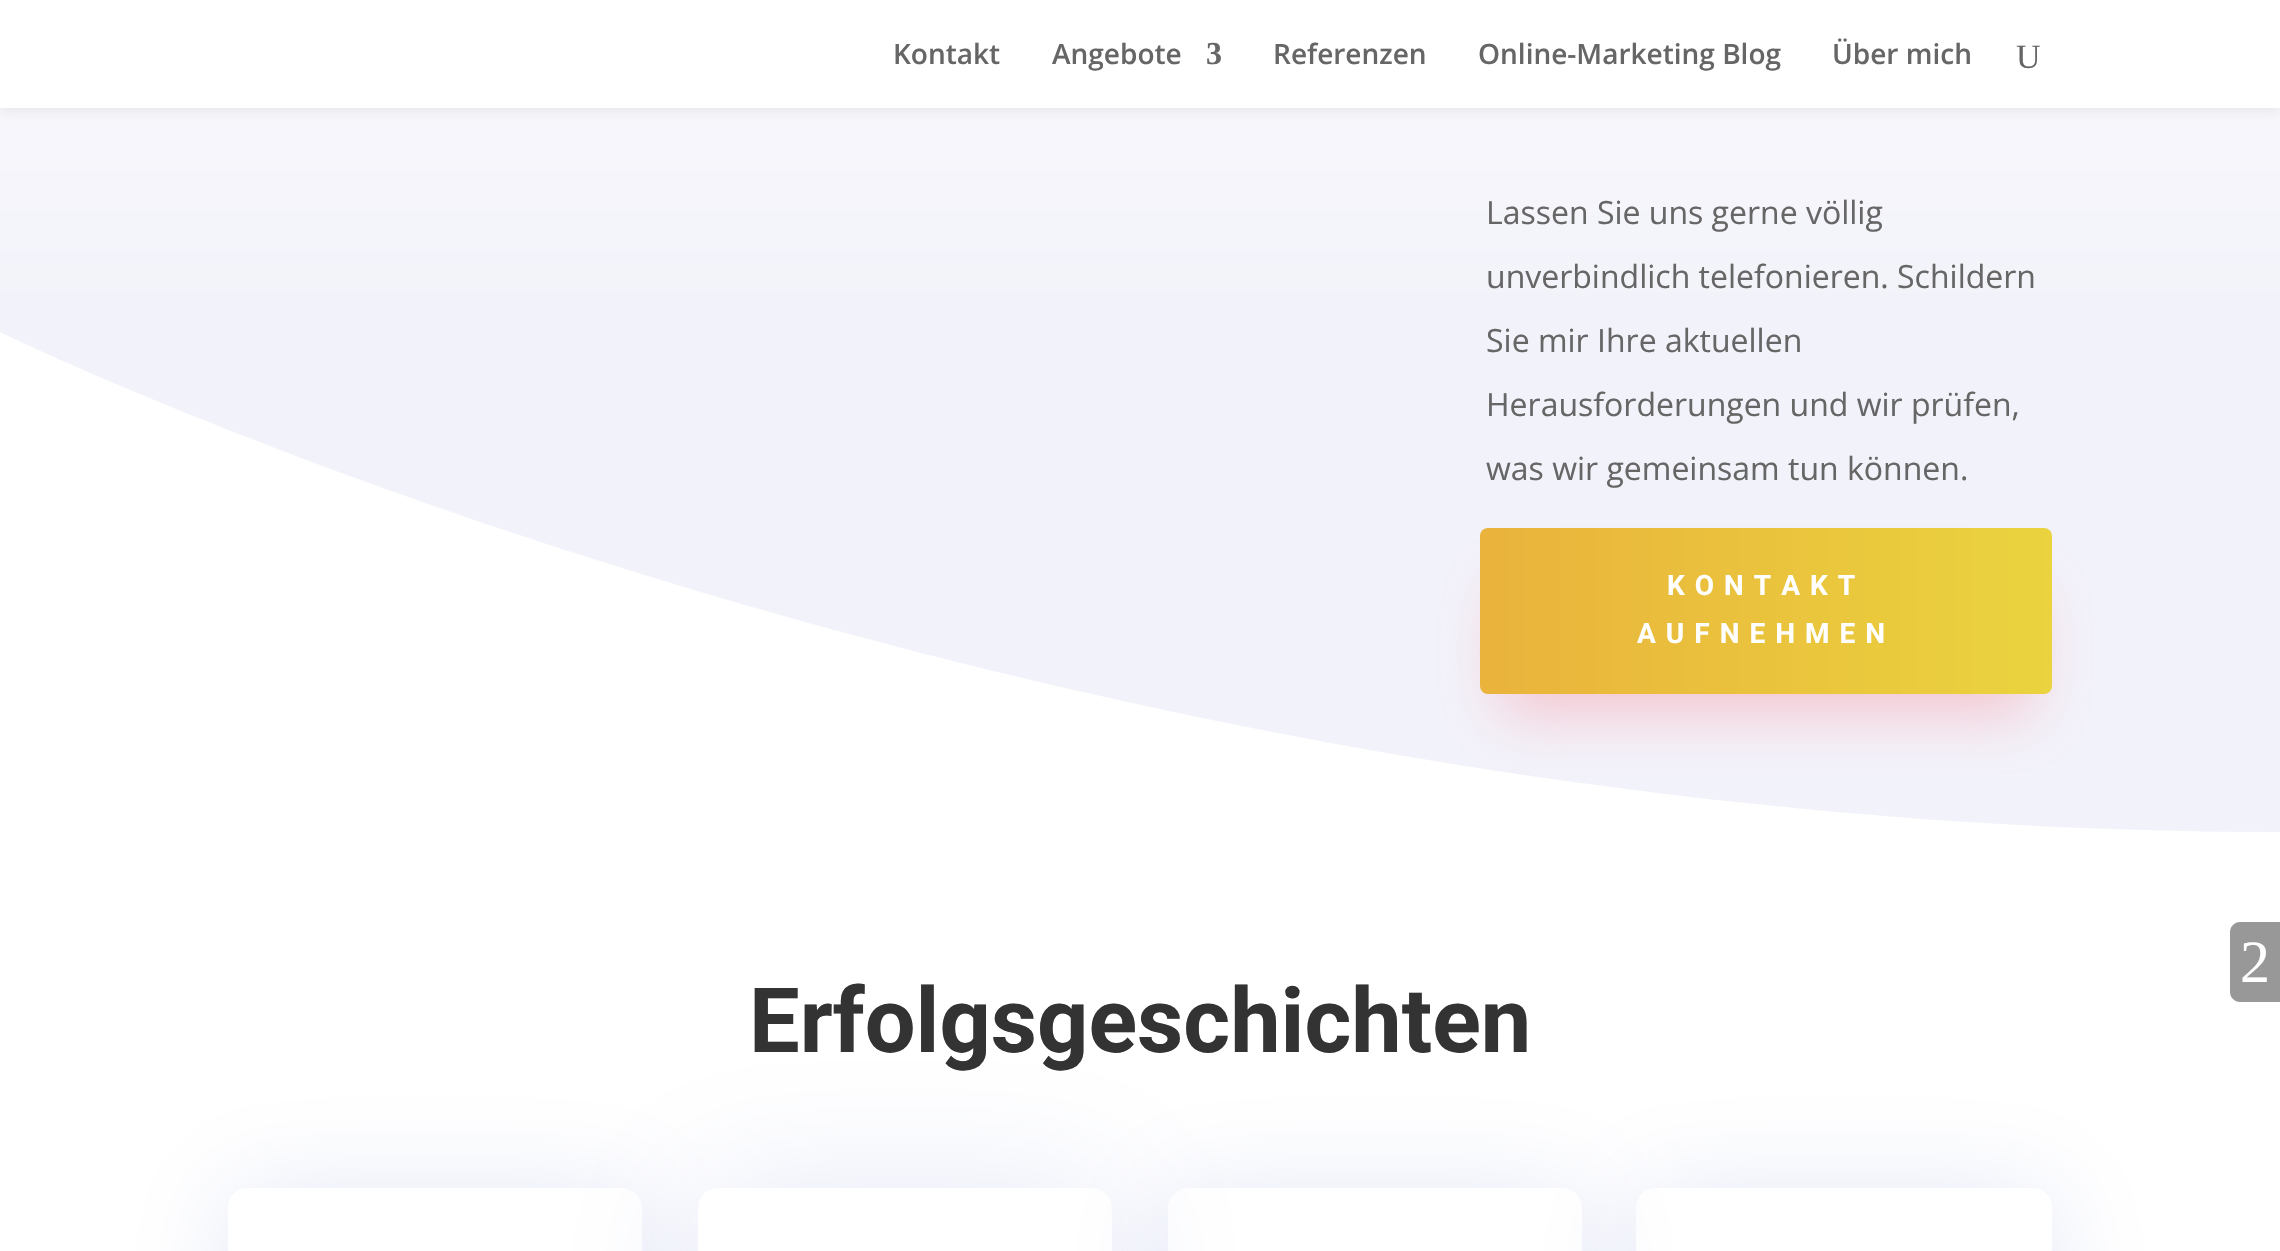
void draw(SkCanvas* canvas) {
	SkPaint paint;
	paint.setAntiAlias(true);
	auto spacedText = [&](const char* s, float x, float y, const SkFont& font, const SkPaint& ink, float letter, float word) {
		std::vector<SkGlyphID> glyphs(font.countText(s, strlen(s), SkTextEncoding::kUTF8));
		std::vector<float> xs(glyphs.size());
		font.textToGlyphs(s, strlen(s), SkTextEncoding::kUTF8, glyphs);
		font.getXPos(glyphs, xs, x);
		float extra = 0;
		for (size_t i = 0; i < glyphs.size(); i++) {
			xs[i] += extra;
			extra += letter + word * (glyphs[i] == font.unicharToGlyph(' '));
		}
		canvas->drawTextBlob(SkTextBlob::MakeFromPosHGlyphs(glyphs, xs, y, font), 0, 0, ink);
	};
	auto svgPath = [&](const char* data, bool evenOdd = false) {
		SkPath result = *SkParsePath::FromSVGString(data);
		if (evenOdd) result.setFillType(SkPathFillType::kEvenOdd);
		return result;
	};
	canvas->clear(0xffffffff);
	{
		const SkColor colors[] = {0xffffffff, 0xfff2f2fa};
		const float stops[] = {0, 0.5};
		const SkPoint ends[] = {{1140, -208}, {1140, 832}};
		paint.setShader(SkGradientShader::MakeLinear(ends, colors, stops, 2, SkTileMode::kClamp));
		paint.setAlpha(255);
	}
	canvas->drawRect(SkRect::MakeXYWH(0, 108, 2280, 724), paint);
	paint.setShader(nullptr);
	paint.setColor(0x1a000000);
	paint.setMaskFilter(SkMaskFilter::MakeBlur(kNormal_SkBlurStyle, 7));
	canvas->drawRect(SkRect::MakeXYWH(0, 0, 2280, 108), paint);
	paint.setMaskFilter(nullptr);
	paint.setColor(0xffffffff);
	canvas->drawRect(SkRect::MakeXYWH(0, 0, 2280, 108), paint);
	SkFont f1(fontMgr->matchFamilyStyle("Open Sans", SkFontStyle(600, SkFontStyle::kNormal_Width, SkFontStyle::kUpright_Slant)), 28);
	f1.setSubpixel(true);
	paint.setColor(0xff666666);
	canvas->drawString("Kontakt", 893, 64, f1, paint);
	canvas->drawString("Angebote", 1052, 64, f1, paint);
	SkFont f2(fontMgr->matchFamilyStyle("Liberation Serif", SkFontStyle::Bold()), 32);
	f2.setSubpixel(true);
	canvas->drawString("3", 1206, 64, f2, paint);
	canvas->drawString("Referenzen", 1273, 64, f1, paint);
	canvas->drawString("Online-Marketing Blog", 1478, 64, f1, paint);
	canvas->drawString("Über mich", 1832, 64, f1, paint);
	SkFont f3(fontMgr->matchFamilyStyle("Liberation Serif", SkFontStyle::Normal()), 34);
	f3.setSubpixel(true);
	canvas->drawString("U", 2016, 68, f3, paint);
	SkFont f4(fontMgr->matchFamilyStyle("Open Sans", SkFontStyle::Normal()), 32);
	f4.setSubpixel(true);
	canvas->drawString("Lassen Sie uns gerne völlig", 1486, 224, f4, paint);
	canvas->drawString("unverbindlich telefonieren. Schildern", 1486, 288, f4, paint);
	paint.setColor(0xffffffff);
	canvas->drawPath(svgPath("M0 832H2280C1021 832 0 332 0 332Z"), paint);
	paint.setColor(0xff666666);
	canvas->drawString("Sie mir Ihre aktuellen", 1486, 352, f4, paint);
	canvas->drawString("Herausforderungen und wir prüfen,", 1486, 416, f4, paint);
	canvas->drawString("was wir gemeinsam tun können.", 1486, 480, f4, paint);
	paint.setColor(0x66f7828e);
	paint.setMaskFilter(SkMaskFilter::MakeBlur(kNormal_SkBlurStyle, 30));
	canvas->drawRect(SkRect::MakeXYWH(1500, 588, 532, 126), paint);
	paint.setMaskFilter(nullptr);
	{
		const SkColor colors[] = {0xffeab33c, 0xffead33e};
		const float stops[] = {0, 1};
		const SkPoint ends[] = {{1480, 611}, {2052, 611}};
		paint.setShader(SkGradientShader::MakeLinear(ends, colors, stops, 2, SkTileMode::kClamp));
		paint.setAlpha(255);
	}
	canvas->drawRoundRect(SkRect::MakeXYWH(1480, 528, 572, 166), 8, 8, paint);
	SkFont f5(fontMgr->matchFamilyStyle("Roboto", SkFontStyle::Bold()), 28);
	f5.setSubpixel(true);
	paint.setShader(nullptr);
	paint.setColor(0xffffffff);
	spacedText("KONTAKT", 1667, 595, f5, paint, 10, 0);
	spacedText("AUFNEHMEN", 1637, 643, f5, paint, 10, 0);
	canvas->save();
	canvas->clipPath(svgPath("M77 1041H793V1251H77ZM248 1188H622C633 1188 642 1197 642 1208V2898C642 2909 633 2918 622 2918H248C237 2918 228 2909 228 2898V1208C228 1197 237 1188 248 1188Z", true), true);
	paint.setColor(0x2e6e82d0);
	paint.setMaskFilter(SkMaskFilter::MakeBlur(kNormal_SkBlurStyle, 50));
	canvas->drawRoundRect(SkRect::MakeXYWH(228, 1192, 414, 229), 20, 20, paint);
	paint.setMaskFilter(nullptr);
	canvas->restore();
	paint.setMaskFilter(SkMaskFilter::MakeBlur(kNormal_SkBlurStyle, 70));
	canvas->drawRoundRect(SkRect::MakeXYWH(698, 1192, 414, 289), 20, 20, paint);
	paint.setMaskFilter(nullptr);
	paint.setColor(0xffffffff);
	canvas->drawRoundRect(SkRect::MakeXYWH(698, 1188, 414, 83), 20, 20, paint);
	canvas->save();
	canvas->clipPath(svgPath("M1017 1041H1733V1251H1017ZM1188 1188H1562C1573 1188 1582 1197 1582 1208V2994C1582 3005 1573 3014 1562 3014H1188C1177 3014 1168 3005 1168 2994V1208C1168 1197 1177 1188 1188 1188Z", true), true);
	paint.setColor(0x2e6e82d0);
	paint.setMaskFilter(SkMaskFilter::MakeBlur(kNormal_SkBlurStyle, 50));
	canvas->drawRoundRect(SkRect::MakeXYWH(1168, 1192, 414, 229), 20, 20, paint);
	paint.setMaskFilter(nullptr);
	canvas->restore();
	canvas->save();
	canvas->clipPath(svgPath("M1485 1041H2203V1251H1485ZM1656 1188H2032C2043 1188 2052 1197 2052 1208V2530C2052 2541 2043 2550 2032 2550H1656C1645 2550 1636 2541 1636 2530V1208C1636 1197 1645 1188 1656 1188Z", true), true);
	paint.setMaskFilter(SkMaskFilter::MakeBlur(kNormal_SkBlurStyle, 50));
	canvas->drawRoundRect(SkRect::MakeXYWH(1636, 1192, 416, 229), 20, 20, paint);
	paint.setMaskFilter(nullptr);
	canvas->restore();
	SkFont f6(fontMgr->matchFamilyStyle("Roboto", SkFontStyle::Bold()), 90);
	f6.setSubpixel(true);
	paint.setColor(0xff333333);
	canvas->drawString("Erfolgsgeschichten", 749, 1052, f6, paint);
	paint.setColor(0xff989899);
	canvas->drawPath(svgPath("M2240 922H2280V1002H2240C2234.5 1002 2230 997.5 2230 992V932C2230 926.5 2234.5 922 2240 922Z"), paint);
	SkFont f7(fontMgr->matchFamilyStyle("Liberation Serif", SkFontStyle::Normal()), 60);
	f7.setSubpixel(true);
	paint.setColor(0xffffffff);
	canvas->drawString("2", 2240, 982, f7, paint);
}
